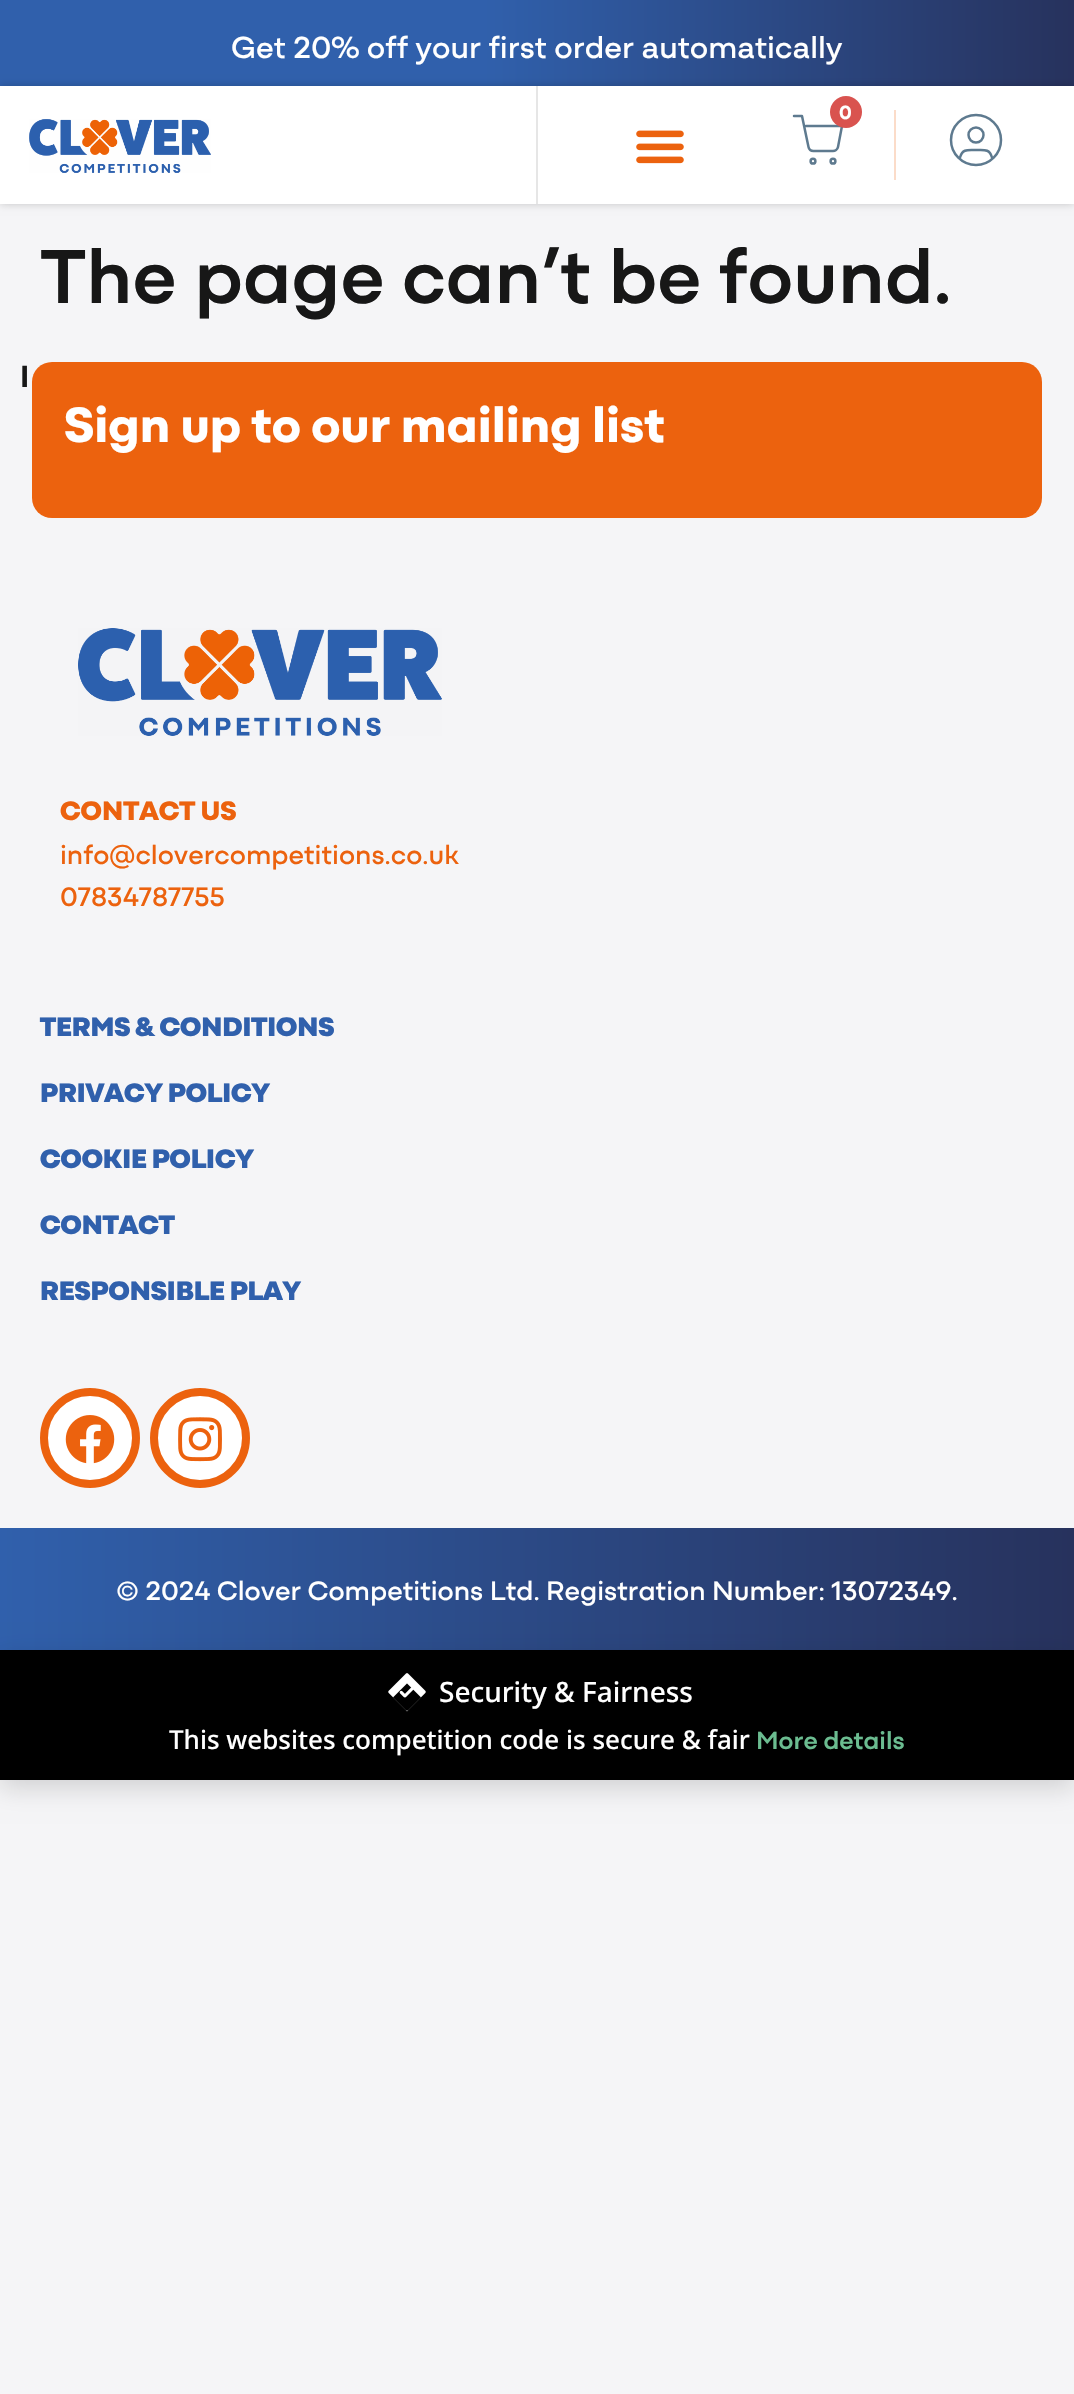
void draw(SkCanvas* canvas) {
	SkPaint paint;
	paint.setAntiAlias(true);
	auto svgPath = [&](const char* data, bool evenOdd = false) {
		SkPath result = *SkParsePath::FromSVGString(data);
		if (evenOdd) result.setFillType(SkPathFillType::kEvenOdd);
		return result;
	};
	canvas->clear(0xfff5f5f7);
	{
		const SkColor colors[] = {0xff3060ac, 0xff27325d};
		const float stops[] = {0.45, 1};
		const SkPoint ends[] = {{0, 43}, {1074, 43}};
		paint.setShader(SkGradientShader::MakeLinear(ends, colors, stops, 2, SkTileMode::kClamp));
		paint.setAlpha(255);
	}
	canvas->drawRect(SkRect::MakeXYWH(0, 0, 1074, 86), paint);
	SkFont f1(fontMgr->matchFamilyStyle("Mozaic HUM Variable", SkFontStyle::Normal()), 32);
	f1.setSubpixel(true);
	paint.setShader(nullptr);
	paint.setColor(0xffffffff);
	canvas->drawString("Get 20% off your first order automatically", 231, 58, f1, paint);
	paint.setColor(0x33000000);
	paint.setMaskFilter(SkMaskFilter::MakeBlur(kNormal_SkBlurStyle, 4));
	canvas->drawRect(SkRect::MakeXYWH(0, 86, 1074, 118), paint);
	paint.setMaskFilter(nullptr);
	paint.setColor(0xffffffff);
	canvas->drawRect(SkRect::MakeXYWH(0, 86, 1074, 118), paint);
	paint.setColor(0xffe6e6e6);
	canvas->drawRect(SkRect::MakeXYWH(536, 86, 2, 118), paint);
	canvas->drawImageRect(SkImages::DeferredFromEncodedData(SkData::MakeFromFileName("img1.png")), SkRect::MakeXYWH(29, 119, 182, 54), SkSamplingOptions());
	paint.setColor(0xfffbdcc9);
	canvas->drawRect(SkRect::MakeXYWH(894, 110, 2, 70), paint);
	paint.setStroke(true);
	paint.setStrokeWidth(2.5);
	paint.setStrokeCap(SkPaint::kRound_Cap);
	paint.setStrokeJoin(SkPaint::kRound_Join);
	paint.setColor(0xff5e7a8f);
	canvas->drawPath(svgPath("M794 116H802L808.5 147C809 149.5 811 151 813.5 151H833C835 151 837.5 149.5 838 147L842 126H806"), paint);
	paint.setStroke(false);
	paint.setColor(0xffd9534f);
	canvas->drawCircle(846, 112, 16, paint);
	SkFont f2(fontMgr->matchFamilyStyle("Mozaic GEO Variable", SkFontStyle(600, SkFontStyle::kNormal_Width, SkFontStyle::kUpright_Slant)), 20);
	f2.setSubpixel(true);
	paint.setColor(0xffffffff);
	canvas->drawString("0", 839, 119, f2, paint);
	paint.setStroke(true);
	paint.setStrokeCap(SkPaint::kButt_Cap);
	paint.setStrokeJoin(SkPaint::kMiter_Join);
	paint.setColor(0xff5e7a8f);
	canvas->drawCircle(813, 161.2, 2.4, paint);
	canvas->drawCircle(833, 161.2, 2.4, paint);
	paint.setStrokeCap(SkPaint::kRound_Cap);
	paint.setStrokeJoin(SkPaint::kRound_Join);
	canvas->drawPath(svgPath("M960 157.5C962.5 148.5 968 150 976 150C984 150 989.5 148.5 992 157.5"), paint);
	paint.setStrokeCap(SkPaint::kButt_Cap);
	paint.setStrokeJoin(SkPaint::kMiter_Join);
	canvas->drawCircle(976, 135, 7.5, paint);
	canvas->drawCircle(976, 140, 25, paint);
	canvas->drawImageRect(SkImages::DeferredFromEncodedData(SkData::MakeFromFileName("img2.png")), SkRect::MakeXYWH(636, 130, 48, 34), SkSamplingOptions());
	SkFont f3(fontMgr->matchFamilyStyle("Mozaic GEO Variable", SkFontStyle(500, SkFontStyle::kNormal_Width, SkFontStyle::kUpright_Slant)), 80);
	f3.setSubpixel(true);
	paint.setStroke(false);
	paint.setColor(0xff171717);
	canvas->drawString("The page can’t be found.", 40, 303, f3, paint);
	SkFont f4(fontMgr->matchFamilyStyle("Mozaic GEO Variable", SkFontStyle(600, SkFontStyle::kNormal_Width, SkFontStyle::kUpright_Slant)), 32);
	f4.setSubpixel(true);
	canvas->drawString("I", 20, 387, f4, paint);
	paint.setColor(0xffec620e);
	canvas->drawRoundRect(SkRect::MakeXYWH(32, 362, 1010, 156), 20, 20, paint);
	SkFont f5(fontMgr->matchFamilyStyle("Mozaic GEO Variable", SkFontStyle::Bold()), 52);
	f5.setSubpixel(true);
	paint.setColor(0xffffffff);
	canvas->drawString("Sign up to our mailing list", 64, 442, f5, paint);
	canvas->drawImageRect(SkImages::DeferredFromEncodedData(SkData::MakeFromFileName("img3.png")), SkRect::MakeXYWH(78, 628, 364, 108), SkSamplingOptions());
	SkFont f6(fontMgr->matchFamilyStyle("Mozaic GEO Variable", SkFontStyle(800, SkFontStyle::kNormal_Width, SkFontStyle::kUpright_Slant)), 28);
	f6.setSubpixel(true);
	paint.setColor(0xffec620e);
	canvas->drawString("CONTACT US", 60, 820, f6, paint);
	SkFont f7(fontMgr->matchFamilyStyle("Mozaic GEO Variable", SkFontStyle::Normal()), 28);
	f7.setSubpixel(true);
	canvas->drawString("info@clovercompetitions.co.uk", 60, 864, f7, paint);
	canvas->drawString("07834787755", 60, 906, f7, paint);
	SkFont f8(fontMgr->matchFamilyStyle("Mozaic GEO Variable", SkFontStyle(900, SkFontStyle::kNormal_Width, SkFontStyle::kUpright_Slant)), 28);
	f8.setSubpixel(true);
	paint.setColor(0xff3060ac);
	canvas->drawString("TERMS & CONDITIONS", 40, 1036, f8, paint);
	canvas->drawString("PRIVACY POLICY", 40, 1102, f8, paint);
	canvas->drawString("COOKIE POLICY", 40, 1168, f8, paint);
	canvas->drawString("CONTACT", 40, 1234, f8, paint);
	canvas->drawString("RESPONSIBLE PLAY", 40, 1300, f8, paint);
	paint.setColor(0xffffffff);
	canvas->drawCircle(90, 1438, 46, paint);
	paint.setStroke(true);
	paint.setStrokeWidth(8);
	paint.setColor(0xffec620e);
	canvas->drawCircle(90, 1438, 46, paint);
	canvas->drawImageRect(SkImages::DeferredFromEncodedData(SkData::MakeFromFileName("img4.png")), SkRect::MakeXYWH(65, 1415, 50, 49), SkSamplingOptions());
	paint.setStroke(false);
	paint.setColor(0xffffffff);
	canvas->drawCircle(200, 1438, 46, paint);
	paint.setStroke(true);
	paint.setColor(0xffec620e);
	canvas->drawCircle(200, 1438, 46, paint);
	canvas->drawImageRect(SkImages::DeferredFromEncodedData(SkData::MakeFromFileName("img5.png")), SkRect::MakeXYWH(178, 1417, 44, 45), SkSamplingOptions());
	paint.setStroke(false);
	{
		const SkColor colors[] = {0xff3060ac, 0xff27325d};
		const float stops[] = {0, 1};
		const SkPoint ends[] = {{0, 1589}, {1074, 1589}};
		paint.setShader(SkGradientShader::MakeLinear(ends, colors, stops, 2, SkTileMode::kClamp));
		paint.setAlpha(255);
	}
	canvas->drawRect(SkRect::MakeXYWH(0, 1528, 1074, 122), paint);
	paint.setShader(nullptr);
	paint.setColor(0xffffffff);
	canvas->drawString("© 2024 Clover Competitions Ltd. Registration Number: 13072349.", 116, 1600, f7, paint);
	paint.setColor(0x26000000);
	paint.setMaskFilter(SkMaskFilter::MakeBlur(kNormal_SkBlurStyle, 12));
	canvas->drawRect(SkRect::MakeXYWH(0, 1658, 1074, 130), paint);
	paint.setMaskFilter(nullptr);
	paint.setColor(0xff000000);
	canvas->drawRect(SkRect::MakeXYWH(0, 1650, 1074, 130), paint);
	canvas->drawImageRect(SkImages::DeferredFromEncodedData(SkData::MakeFromFileName("img6.png")), SkRect::MakeXYWH(388, 1673, 38, 39), SkSamplingOptions());
	SkFont f9(fontMgr->matchFamilyStyle("Noto Sans", SkFontStyle(500, SkFontStyle::kNormal_Width, SkFontStyle::kUpright_Slant)), 28);
	f9.setSubpixel(true);
	paint.setColor(0xffffffff);
	canvas->drawString("Security & Fairness", 439, 1702, f9, paint);
	SkFont f10(fontMgr->matchFamilyStyle("Noto Sans", SkFontStyle(500, SkFontStyle::kNormal_Width, SkFontStyle::kUpright_Slant)), 26);
	f10.setSubpixel(true);
	canvas->drawString("This websites competition code is secure & fair", 169, 1749, f10, paint);
	SkFont f11(fontMgr->matchFamilyStyle("Mozaic GEO Variable", SkFontStyle(500, SkFontStyle::kNormal_Width, SkFontStyle::kUpright_Slant)), 26);
	f11.setSubpixel(true);
	paint.setColor(0xff6bbc90);
	canvas->drawString("More details", 756, 1749, f11, paint);
}
